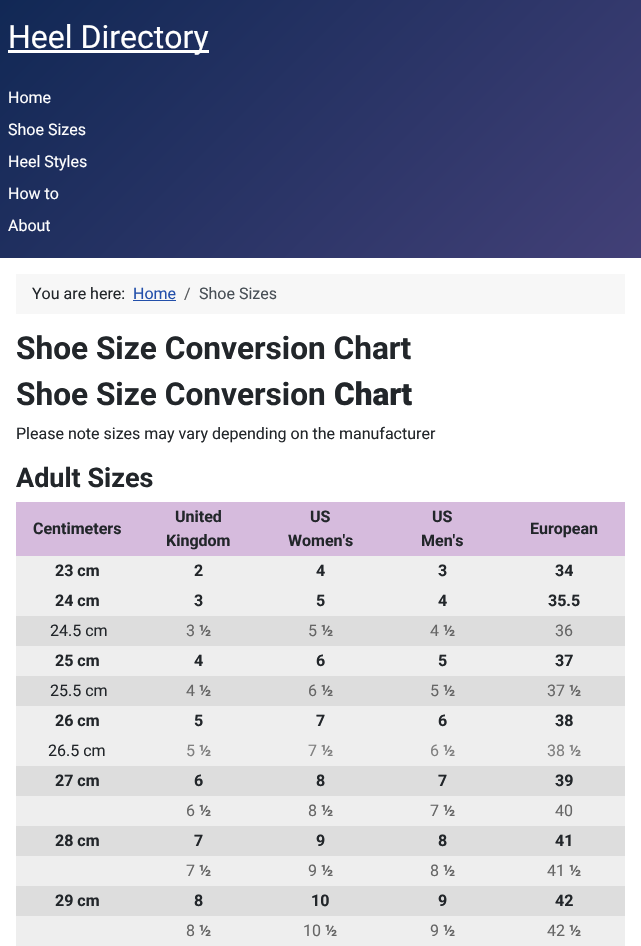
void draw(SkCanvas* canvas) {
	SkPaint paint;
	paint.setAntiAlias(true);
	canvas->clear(0xffffffff);
	{
		const SkColor colors[] = {0xff112855, 0xff424077};
		const float stops[] = {0, 1};
		const SkPoint ends[] = {{96, -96}, {545, 354}};
		paint.setShader(SkGradientShader::MakeLinear(ends, colors, stops, 2, SkTileMode::kClamp));
		paint.setAlpha(255);
	}
	canvas->drawRect(SkRect::MakeXYWH(0, 0, 641, 258), paint);
	paint.setShader(nullptr);
	paint.setColor(0xffffffff);
	canvas->drawRect(SkRect::MakeXYWH(8, 50, 201, 3), paint);
	SkFont f1(fontMgr->matchFamilyStyle("Roboto", SkFontStyle::Normal()), 32);
	f1.setSubpixel(true);
	canvas->drawString("Heel Directory", 8, 48, f1, paint);
	SkFont f2(fontMgr->matchFamilyStyle("Roboto", SkFontStyle::Normal()), 16);
	f2.setSubpixel(true);
	canvas->drawString("Home", 8, 103, f2, paint);
	canvas->drawString("Shoe Sizes", 8, 135, f2, paint);
	canvas->drawString("Heel Styles", 8, 167, f2, paint);
	canvas->drawString("How to", 8, 199, f2, paint);
	canvas->drawString("About", 8, 231, f2, paint);
	paint.setColor(0xfff7f7f7);
	canvas->drawRect(SkRect::MakeXYWH(16, 274, 609, 40), paint);
	paint.setColor(0xff22262a);
	canvas->drawString("You are here:", 32, 299, f2, paint);
	paint.setColor(0xff224faa);
	canvas->drawString("Home", 133, 299, f2, paint);
	canvas->drawRect(SkRect::MakeXYWH(133, 300, 43, 1), paint);
	paint.setColor(0xff575a5d);
	canvas->drawString("/", 184, 299, f2, paint);
	paint.setColor(0xff484f56);
	canvas->drawString("Shoe Sizes", 199, 299, f2, paint);
	SkFont f3(fontMgr->matchFamilyStyle("Roboto", SkFontStyle::Bold()), 31.6);
	f3.setSubpixel(true);
	paint.setColor(0xff22262a);
	canvas->drawString("Shoe Size Conversion Chart", 16, 359, f3, paint);
	canvas->drawString("Shoe Size Conversion", 16, 405, f3, paint);
	SkFont f4(fontMgr->matchFamilyStyle("Roboto", SkFontStyle(900, SkFontStyle::kNormal_Width, SkFontStyle::kUpright_Slant)), 31.6);
	f4.setSubpixel(true);
	canvas->drawString("Chart", 334, 405, f4, paint);
	canvas->drawString("Please note sizes may vary depending on the manufacturer", 16, 439, f2, paint);
	SkFont f5(fontMgr->matchFamilyStyle("Roboto", SkFontStyle::Bold()), 27);
	f5.setSubpixel(true);
	canvas->drawString("Adult Sizes", 16, 487, f5, paint);
	paint.setColor(0xffd6bbdd);
	canvas->drawRect(SkRect::MakeXYWH(16, 502, 609, 54), paint);
	SkFont f6(fontMgr->matchFamilyStyle("Roboto", SkFontStyle::Bold()), 16);
	f6.setSubpixel(true);
	paint.setColor(0xff22262a);
	canvas->drawString("Centimeters", 33, 534, f6, paint);
	canvas->drawString("United", 175, 522, f6, paint);
	canvas->drawString("Kingdom", 166, 546, f6, paint);
	canvas->drawString("US", 310, 522, f6, paint);
	canvas->drawString("Women's", 288, 546, f6, paint);
	canvas->drawString("US", 432, 522, f6, paint);
	canvas->drawString("Men's", 421, 546, f6, paint);
	canvas->drawString("European", 530, 534, f6, paint);
	paint.setColor(0xffeeeeee);
	canvas->drawRect(SkRect::MakeXYWH(16, 556, 609, 30), paint);
	paint.setColor(0xff22262a);
	canvas->drawString("23 cm", 55, 576, f6, paint);
	canvas->drawString("2", 194, 576, f6, paint);
	canvas->drawString("4", 316, 576, f6, paint);
	canvas->drawString("3", 438, 576, f6, paint);
	canvas->drawString("34", 555, 576, f6, paint);
	paint.setColor(0xffeeeeee);
	canvas->drawRect(SkRect::MakeXYWH(16, 586, 609, 30), paint);
	paint.setColor(0xff22262a);
	canvas->drawString("24 cm", 55, 606, f6, paint);
	canvas->drawString("3", 194, 606, f6, paint);
	canvas->drawString("5", 316, 606, f6, paint);
	canvas->drawString("4", 438, 606, f6, paint);
	canvas->drawString("35.5", 548, 606, f6, paint);
	paint.setColor(0xffdddddd);
	canvas->drawRect(SkRect::MakeXYWH(16, 616, 609, 30), paint);
	paint.setColor(0xff22262a);
	canvas->drawString("24.5 cm", 50, 636, f2, paint);
	paint.setColor(0xff666666);
	canvas->drawString("3", 186, 636, f2, paint);
	canvas->drawString("½", 199, 636, f6, paint);
	canvas->drawString("5", 308, 636, f2, paint);
	canvas->drawString("½", 321, 636, f6, paint);
	canvas->drawString("4", 430, 636, f2, paint);
	canvas->drawString("½", 443, 636, f6, paint);
	canvas->drawString("36", 555, 636, f2, paint);
	paint.setColor(0xffeeeeee);
	canvas->drawRect(SkRect::MakeXYWH(16, 646, 609, 30), paint);
	paint.setColor(0xff22262a);
	canvas->drawString("25 cm", 55, 666, f6, paint);
	canvas->drawString("4", 194, 666, f6, paint);
	canvas->drawString("6", 316, 666, f6, paint);
	canvas->drawString("5", 438, 666, f6, paint);
	canvas->drawString("37", 555, 666, f6, paint);
	paint.setColor(0xffdddddd);
	canvas->drawRect(SkRect::MakeXYWH(16, 676, 609, 30), paint);
	paint.setColor(0xff22262a);
	canvas->drawString("25.5 cm", 50, 696, f2, paint);
	paint.setColor(0xff666666);
	canvas->drawString("4", 186, 696, f2, paint);
	canvas->drawString("½", 199, 696, f6, paint);
	canvas->drawString("6", 308, 696, f2, paint);
	canvas->drawString("½", 321, 696, f6, paint);
	canvas->drawString("5", 430, 696, f2, paint);
	canvas->drawString("½", 443, 696, f6, paint);
	canvas->drawString("37", 547, 696, f2, paint);
	canvas->drawString("½", 569, 696, f6, paint);
	paint.setColor(0xffeeeeee);
	canvas->drawRect(SkRect::MakeXYWH(16, 706, 609, 30), paint);
	paint.setColor(0xff22262a);
	canvas->drawString("26 cm", 55, 726, f6, paint);
	canvas->drawString("5", 194, 726, f6, paint);
	canvas->drawString("7", 316, 726, f6, paint);
	canvas->drawString("6", 438, 726, f6, paint);
	canvas->drawString("38", 555, 726, f6, paint);
	paint.setColor(0xffeeeeee);
	canvas->drawRect(SkRect::MakeXYWH(16, 736, 609, 30), paint);
	paint.setColor(0xff22262a);
	canvas->drawString("26.5 cm", 48, 756, f2, paint);
	paint.setColor(0xff808080);
	canvas->drawString("5", 186, 756, f2, paint);
	canvas->drawString("½", 199, 756, f6, paint);
	canvas->drawString("7", 308, 756, f2, paint);
	canvas->drawString("½", 321, 756, f6, paint);
	canvas->drawString("6", 430, 756, f2, paint);
	canvas->drawString("½", 443, 756, f6, paint);
	canvas->drawString("38", 547, 756, f2, paint);
	canvas->drawString("½", 569, 756, f6, paint);
	paint.setColor(0xffdddddd);
	canvas->drawRect(SkRect::MakeXYWH(16, 766, 609, 30), paint);
	paint.setColor(0xff22262a);
	canvas->drawString("27 cm", 55, 786, f6, paint);
	canvas->drawString("6", 194, 786, f6, paint);
	canvas->drawString("8", 316, 786, f6, paint);
	canvas->drawString("7", 438, 786, f6, paint);
	canvas->drawString("39", 555, 786, f6, paint);
	paint.setColor(0xffeeeeee);
	canvas->drawRect(SkRect::MakeXYWH(16, 796, 609, 30), paint);
	paint.setColor(0xff666666);
	canvas->drawString("6", 186, 816, f2, paint);
	canvas->drawString("½", 199, 816, f6, paint);
	canvas->drawString("8", 308, 816, f2, paint);
	canvas->drawString("½", 321, 816, f6, paint);
	canvas->drawString("7", 430, 816, f2, paint);
	canvas->drawString("½", 443, 816, f6, paint);
	canvas->drawString("40", 555, 816, f2, paint);
	paint.setColor(0xffdddddd);
	canvas->drawRect(SkRect::MakeXYWH(16, 826, 609, 30), paint);
	paint.setColor(0xff22262a);
	canvas->drawString("28 cm", 55, 846, f6, paint);
	canvas->drawString("7", 194, 846, f6, paint);
	canvas->drawString("9", 316, 846, f6, paint);
	canvas->drawString("8", 438, 846, f6, paint);
	canvas->drawString("41", 555, 846, f6, paint);
	paint.setColor(0xffeeeeee);
	canvas->drawRect(SkRect::MakeXYWH(16, 856, 609, 30), paint);
	paint.setColor(0xff666666);
	canvas->drawString("7", 186, 876, f2, paint);
	canvas->drawString("½", 199, 876, f6, paint);
	canvas->drawString("9", 308, 876, f2, paint);
	canvas->drawString("½", 321, 876, f6, paint);
	canvas->drawString("8", 430, 876, f2, paint);
	canvas->drawString("½", 443, 876, f6, paint);
	canvas->drawString("41", 547, 876, f2, paint);
	canvas->drawString("½", 569, 876, f6, paint);
	paint.setColor(0xffdddddd);
	canvas->drawRect(SkRect::MakeXYWH(16, 886, 609, 30), paint);
	paint.setColor(0xff22262a);
	canvas->drawString("29 cm", 55, 906, f6, paint);
	canvas->drawString("8", 194, 906, f6, paint);
	canvas->drawString("10", 311, 906, f6, paint);
	canvas->drawString("9", 438, 906, f6, paint);
	canvas->drawString("42", 555, 906, f6, paint);
	paint.setColor(0xffeeeeee);
	canvas->drawRect(SkRect::MakeXYWH(16, 916, 609, 30), paint);
	paint.setColor(0xff666666);
	canvas->drawString("8", 186, 936, f2, paint);
	canvas->drawString("½", 199, 936, f6, paint);
	canvas->drawString("10", 303, 936, f2, paint);
	canvas->drawString("½", 325, 936, f6, paint);
	canvas->drawString("9", 430, 936, f2, paint);
	canvas->drawString("½", 443, 936, f6, paint);
	canvas->drawString("42", 547, 936, f2, paint);
	canvas->drawString("½", 569, 936, f6, paint);
}
